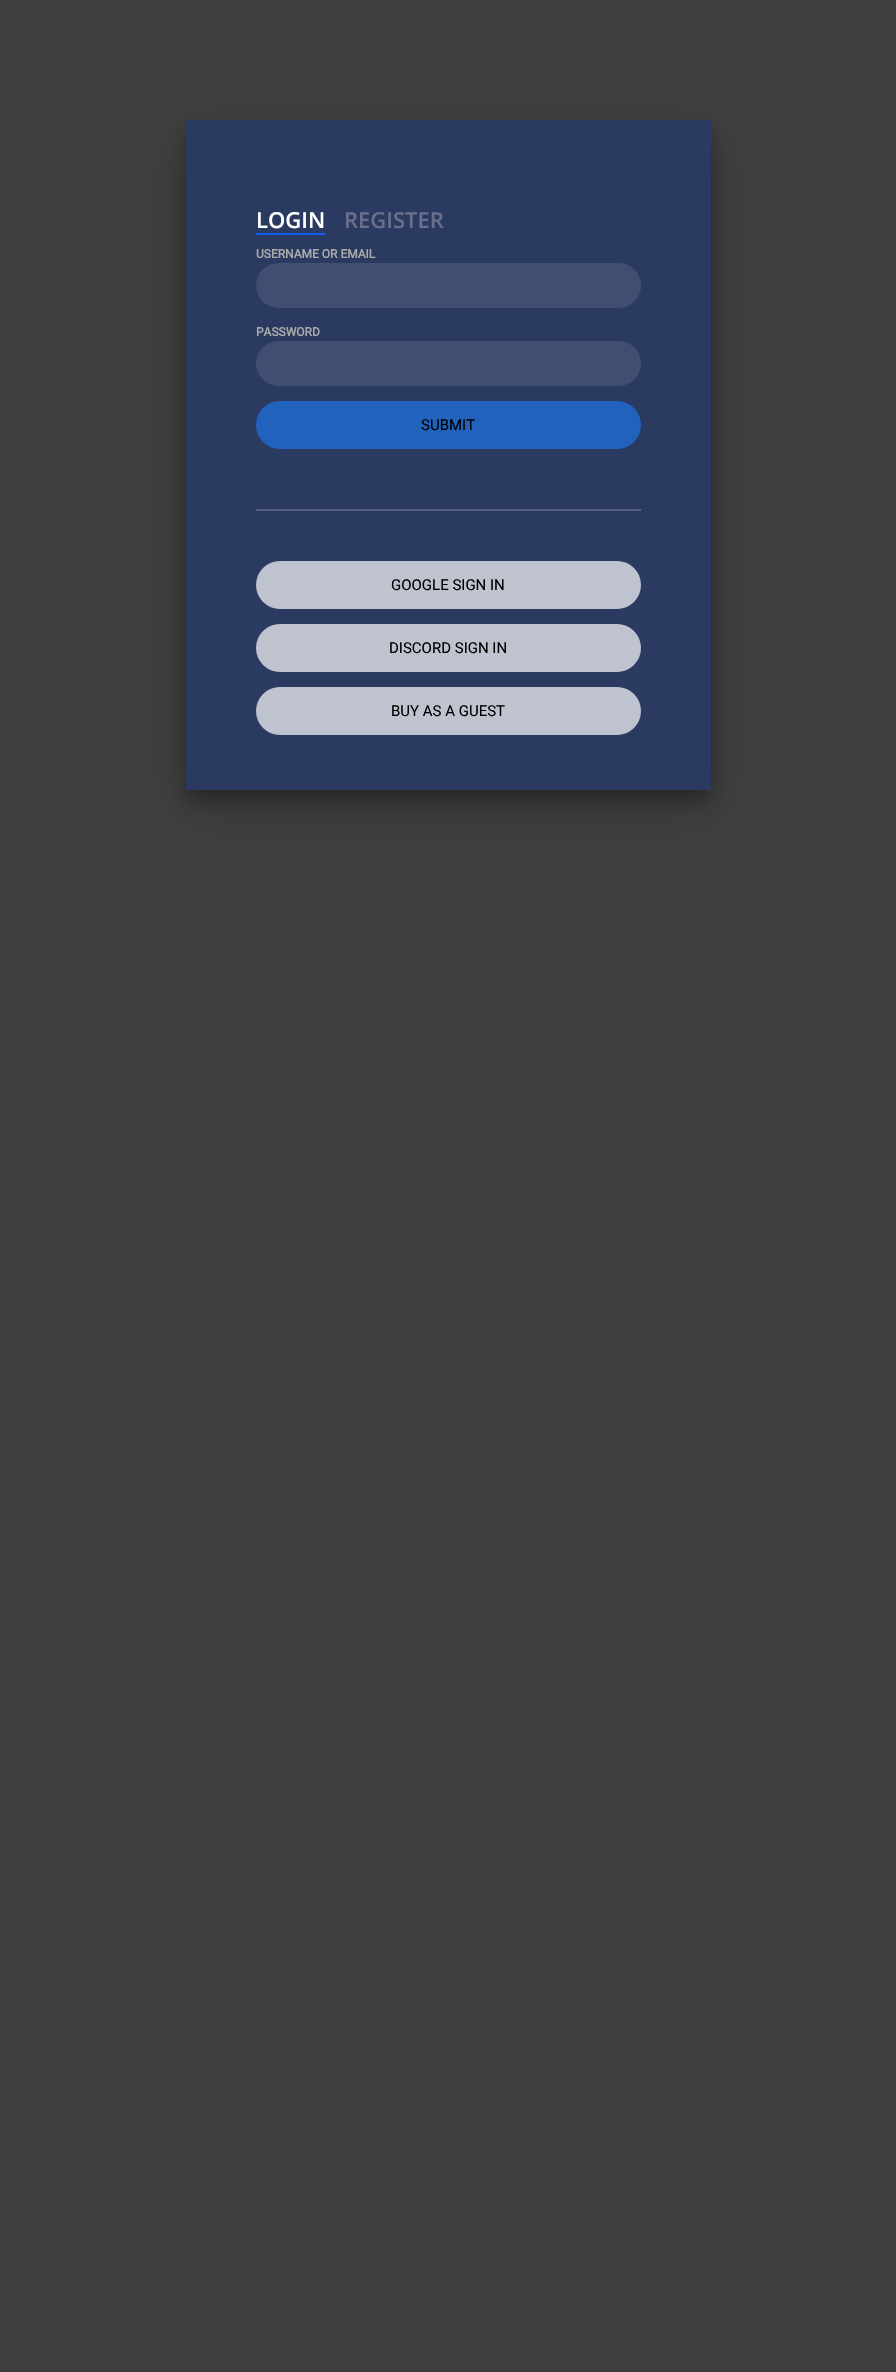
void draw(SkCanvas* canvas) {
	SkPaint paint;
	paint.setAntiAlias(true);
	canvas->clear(0xff403f3f);
	paint.setColor(0x30000000);
	paint.setMaskFilter(SkMaskFilter::MakeBlur(kNormal_SkBlurStyle, 25));
	canvas->drawRect(SkRect::MakeXYWH(186, 137, 525, 670), paint);
	paint.setMaskFilter(nullptr);
	paint.setColor(0x3d000000);
	paint.setMaskFilter(SkMaskFilter::MakeBlur(kNormal_SkBlurStyle, 7.5));
	canvas->drawRect(SkRect::MakeXYWH(186, 132, 525, 670), paint);
	paint.setMaskFilter(nullptr);
	paint.setColor(0xff2a3a61);
	canvas->drawRect(SkRect::MakeXYWH(186, 120, 525, 670), paint);
	paint.setColor(0xff1161ee);
	canvas->drawRect(SkRect::MakeXYWH(256, 233, 69, 2), paint);
	SkFont f1(fontMgr->matchFamilyStyle("Open Sans", SkFontStyle(600, SkFontStyle::kNormal_Width, SkFontStyle::kUpright_Slant)), 22);
	f1.setSubpixel(true);
	paint.setColor(0xffffffff);
	canvas->drawString("LOGIN", 256, 228, f1, paint);
	paint.setColor(0xff6a6f8c);
	canvas->drawString("REGISTER", 344, 228, f1, paint);
	SkFont f2(fontMgr->matchFamilyStyle("Roboto", SkFontStyle::Bold()), 12);
	f2.setSubpixel(true);
	paint.setColor(0xffaaaaaa);
	canvas->drawString("USERNAME OR EMAIL", 256, 258, f2, paint);
	paint.setColor(0xff3f4e71);
	canvas->drawRoundRect(SkRect::MakeXYWH(256, 263, 385, 45), 22.5, 22.5, paint);
	paint.setColor(0xffaaaaaa);
	canvas->drawString("PASSWORD", 256, 336, f2, paint);
	paint.setColor(0xff3f4e71);
	canvas->drawRoundRect(SkRect::MakeXYWH(256, 341, 385, 45), 22.5, 22.5, paint);
	paint.setColor(0xff2162bd);
	canvas->drawRoundRect(SkRect::MakeXYWH(256, 401, 385, 48), 24, 24, paint);
	SkFont f3(fontMgr->matchFamilyStyle("Roboto", SkFontStyle::Normal()), 15);
	f3.setSubpixel(true);
	paint.setColor(0xff000000);
	canvas->drawString("SUBMIT", 421, 430, f3, paint);
	paint.setColor(0xff556181);
	canvas->drawRect(SkRect::MakeXYWH(256, 509, 385, 2), paint);
	paint.setColor(0xffbec3cf);
	canvas->drawRoundRect(SkRect::MakeXYWH(256, 561, 385, 48), 24, 24, paint);
	paint.setColor(0xff000000);
	canvas->drawString("GOOGLE SIGN IN", 391, 590, f3, paint);
	paint.setColor(0xffbec3cf);
	canvas->drawRoundRect(SkRect::MakeXYWH(256, 624, 385, 48), 24, 24, paint);
	paint.setColor(0xff000000);
	canvas->drawString("DISCORD SIGN IN", 389, 653, f3, paint);
	paint.setColor(0xffbec3cf);
	canvas->drawRoundRect(SkRect::MakeXYWH(256, 687, 385, 48), 24, 24, paint);
	paint.setColor(0xff000000);
	canvas->drawString("BUY AS A GUEST", 391, 716, f3, paint);
}
